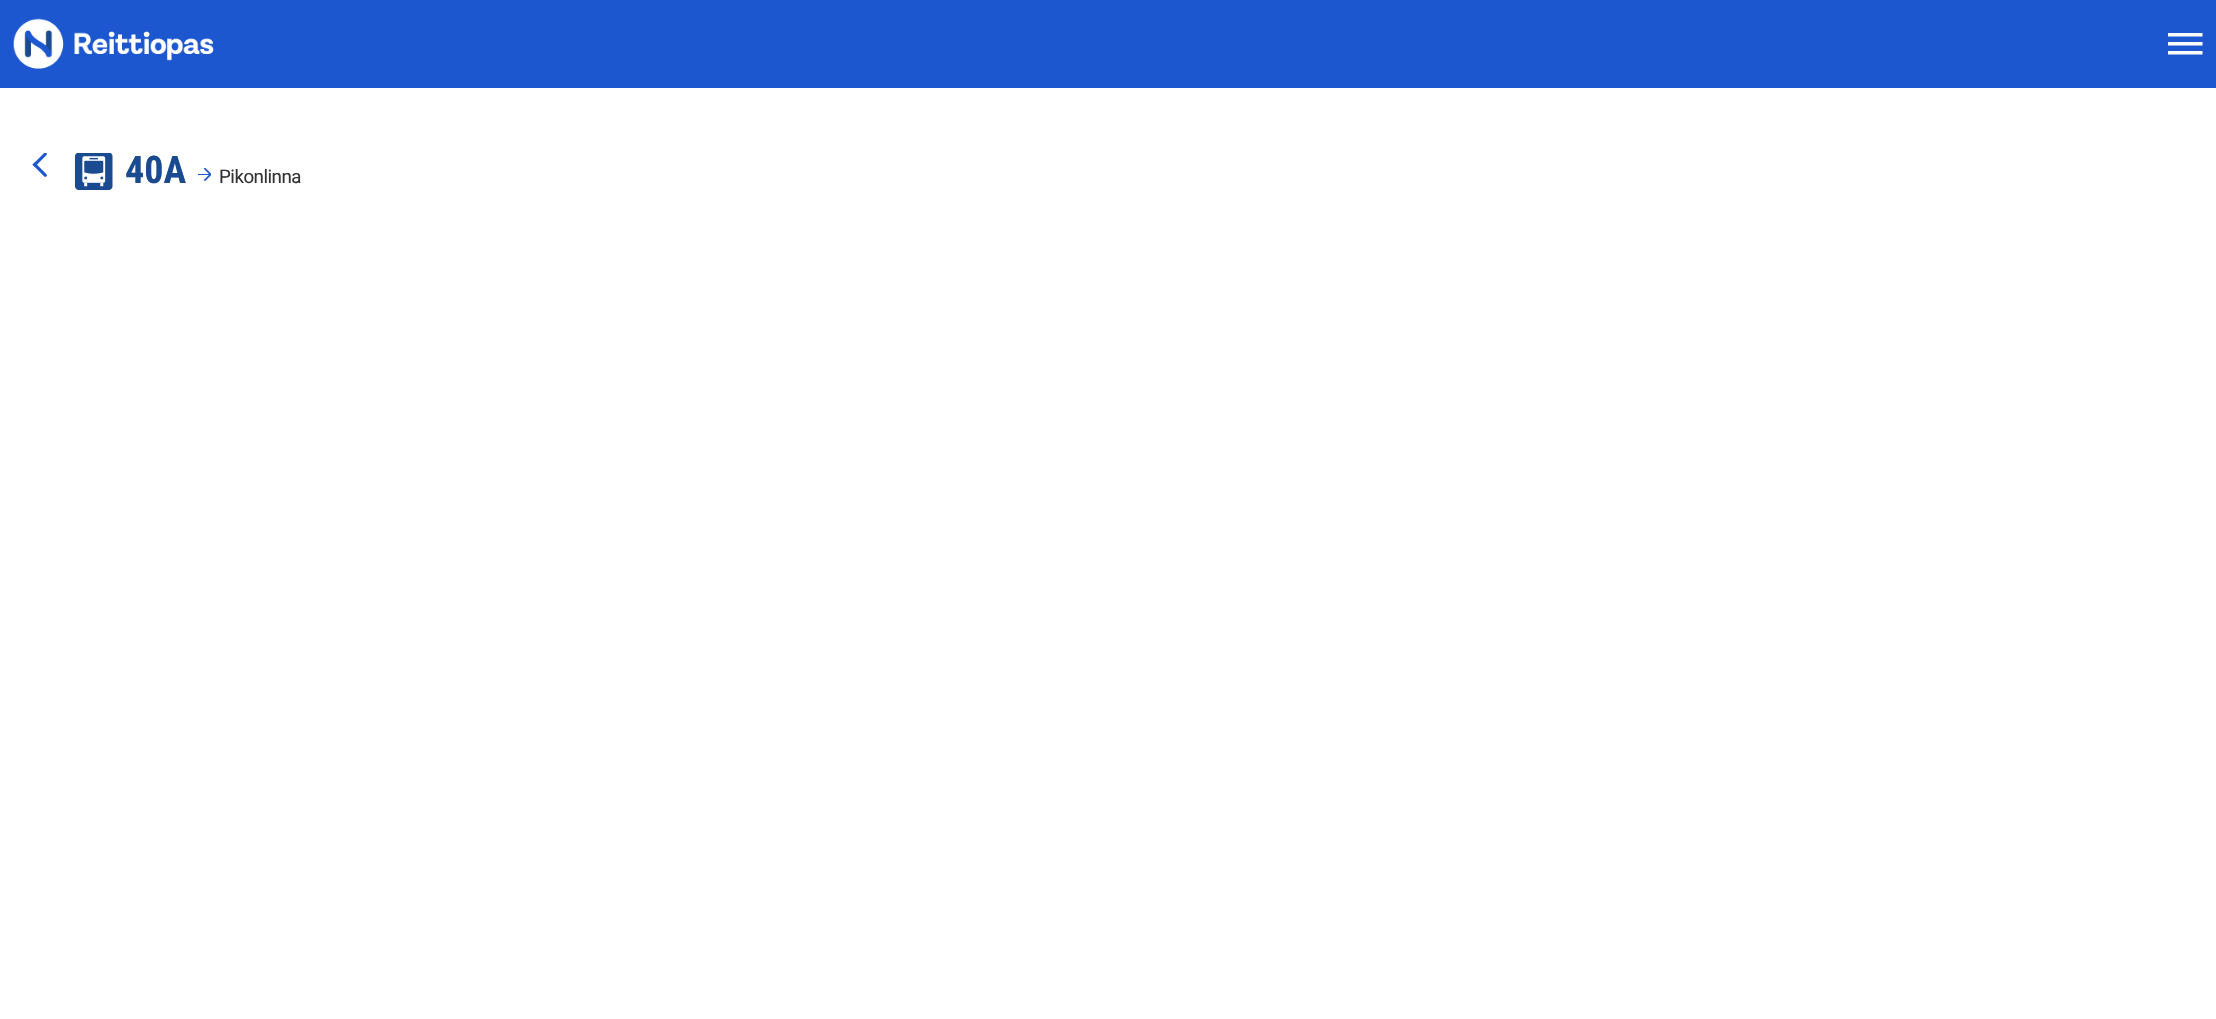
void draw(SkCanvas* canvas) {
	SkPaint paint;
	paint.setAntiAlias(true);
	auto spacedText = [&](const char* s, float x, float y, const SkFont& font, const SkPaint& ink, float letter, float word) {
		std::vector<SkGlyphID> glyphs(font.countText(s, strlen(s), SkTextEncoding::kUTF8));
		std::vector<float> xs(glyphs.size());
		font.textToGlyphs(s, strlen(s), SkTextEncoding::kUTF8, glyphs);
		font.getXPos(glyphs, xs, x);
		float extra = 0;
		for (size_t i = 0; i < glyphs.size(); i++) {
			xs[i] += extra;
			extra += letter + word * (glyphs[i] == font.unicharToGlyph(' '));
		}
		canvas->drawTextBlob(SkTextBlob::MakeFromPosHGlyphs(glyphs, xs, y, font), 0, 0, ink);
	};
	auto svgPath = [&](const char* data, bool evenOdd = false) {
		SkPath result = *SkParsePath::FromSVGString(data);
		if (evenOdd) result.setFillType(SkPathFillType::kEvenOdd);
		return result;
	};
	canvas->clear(0xffffffff);
	paint.setColor(0xff1c57cf);
	canvas->drawRect(SkRect::MakeXYWH(0, 0, 2216, 88), paint);
	canvas->drawImageRect(SkImages::DeferredFromEncodedData(SkData::MakeFromFileName("img1.png")), SkRect::MakeXYWH(13, 18, 201, 51), SkSamplingOptions());
	canvas->save();
	canvas->clipRect(SkRect::MakeXYWH(2168, 26, 35, 35));
	paint.setColor(0xffffffff);
	canvas->drawPath(svgPath("M2167.5 33H2202.5V36.5H2167.5ZM2167.5 42H2202.5V45.5H2167.5ZM2167.5 51H2202.5V54.5H2167.5Z"), paint);
	canvas->restore();
	canvas->drawImageRect(SkImages::DeferredFromEncodedData(SkData::MakeFromFileName("img2.png")), SkRect::MakeXYWH(32, 153, 15, 24), SkSamplingOptions());
	canvas->drawImageRect(SkImages::DeferredFromEncodedData(SkData::MakeFromFileName("img3.png")), SkRect::MakeXYWH(75, 153, 38, 37), SkSamplingOptions());
	SkFont f1(fontMgr->matchFamilyStyle("Roboto Condensed", SkFontStyle::Bold()), 38);
	f1.setSubpixel(true);
	paint.setColor(0xff1a4a8f);
	canvas->drawString("40A", 125, 183, f1, paint);
	canvas->drawImageRect(SkImages::DeferredFromEncodedData(SkData::MakeFromFileName("img4.png")), SkRect::MakeXYWH(198, 168, 13, 13), SkSamplingOptions());
	SkFont f2(fontMgr->matchFamilyStyle("Roboto", SkFontStyle::Normal()), 18.75);
	f2.setSubpixel(true);
	paint.setColor(0xff333333);
	spacedText("Pikonlinna", 219, 183, f2, paint, -0.5, 0);
}
